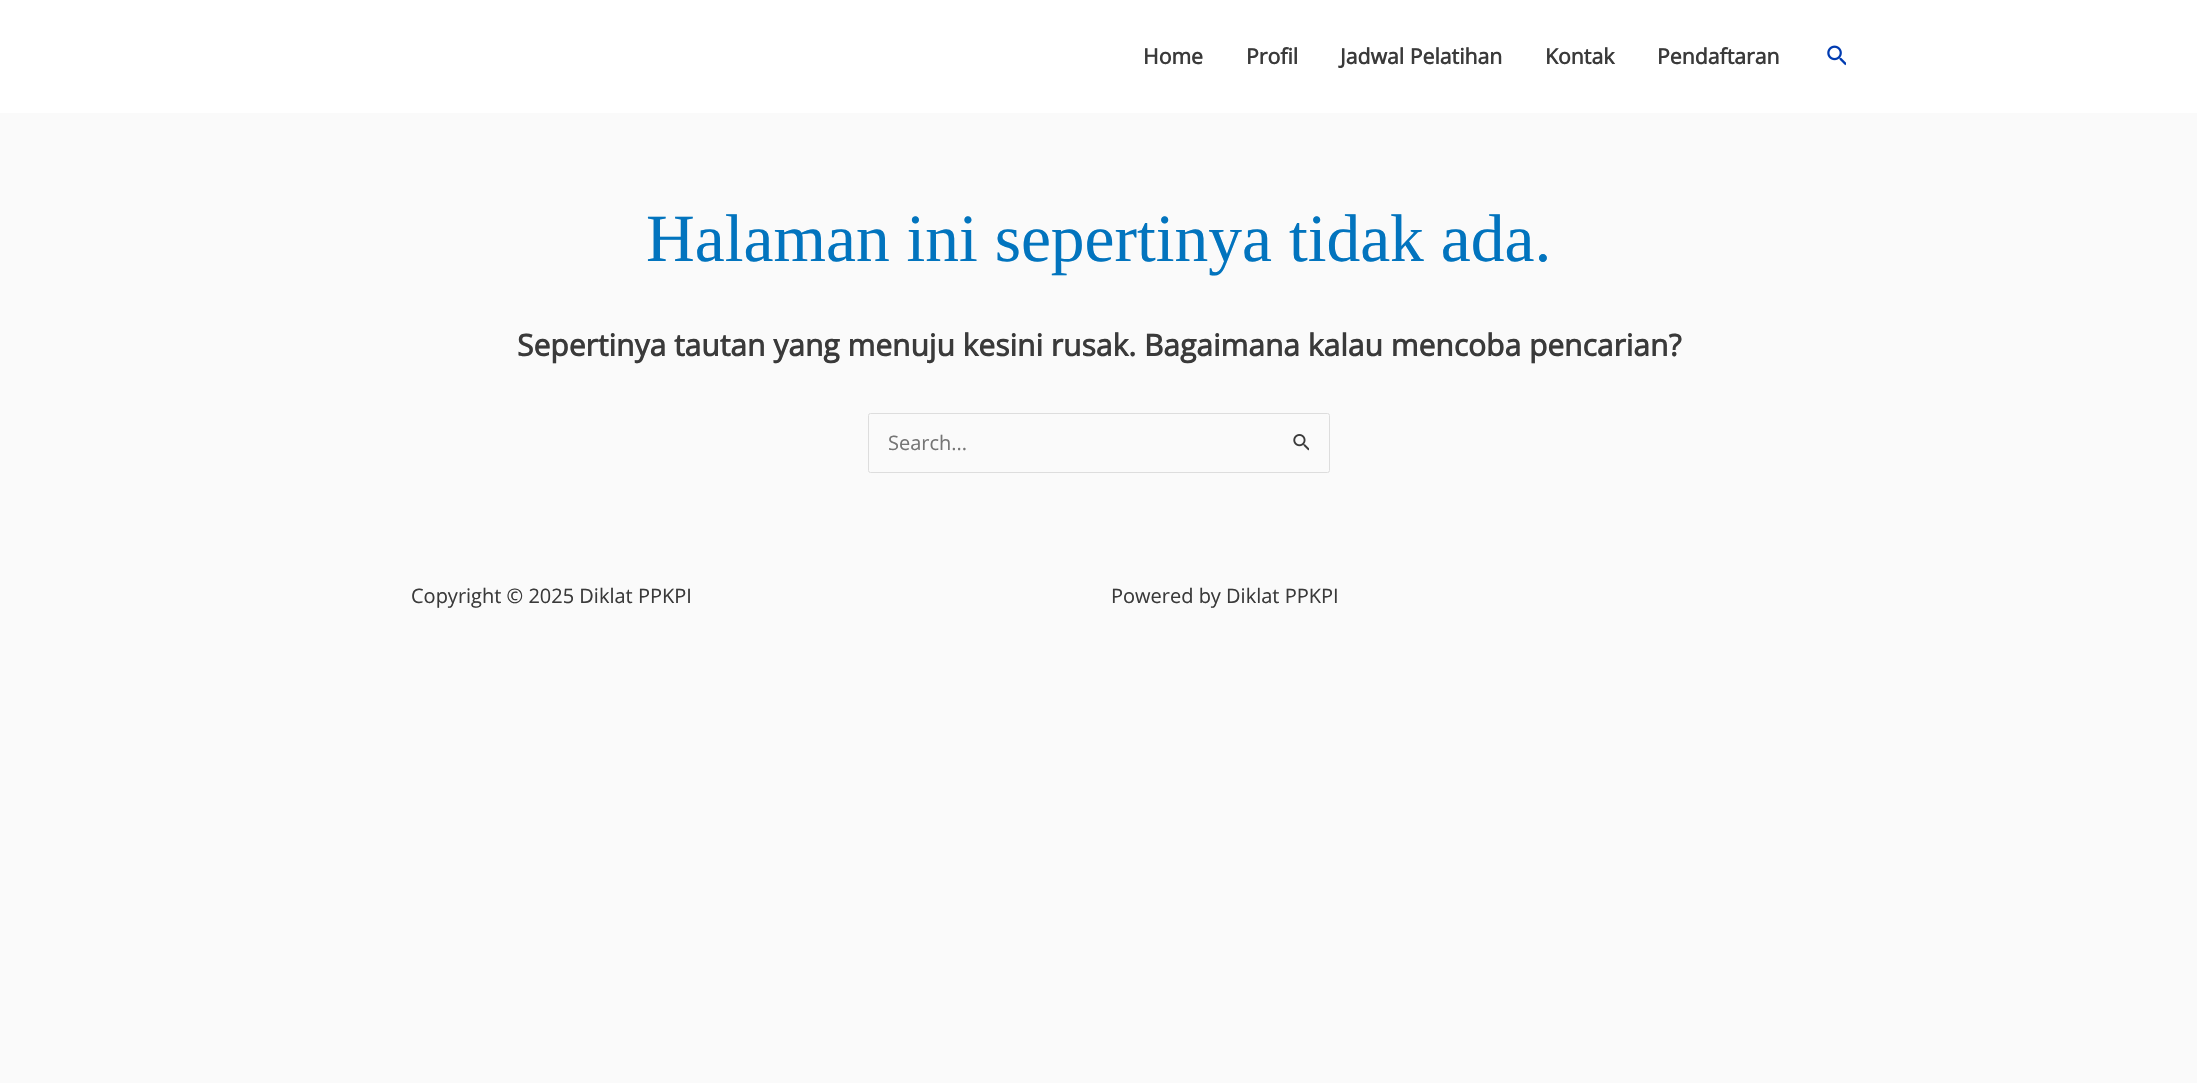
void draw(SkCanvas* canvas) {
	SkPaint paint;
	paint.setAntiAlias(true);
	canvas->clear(0xfffafafa);
	paint.setColor(0xffffffff);
	canvas->drawRect(SkRect::MakeXYWH(0, 0, 2197, 113), paint);
	SkFont f1(fontMgr->matchFamilyStyle("Open Sans", SkFontStyle::Bold()), 21.25);
	f1.setSubpixel(true);
	paint.setColor(0xff3a3a3a);
	canvas->drawString("Home", 1143, 64, f1, paint);
	canvas->drawString("Profil", 1246, 64, f1, paint);
	canvas->drawString("Jadwal Pelatihan", 1340, 64, f1, paint);
	canvas->drawString("Kontak", 1545, 64, f1, paint);
	canvas->drawString("Pendaftaran", 1657, 64, f1, paint);
	canvas->drawImageRect(SkImages::DeferredFromEncodedData(SkData::MakeFromFileName("img1.png")), SkRect::MakeXYWH(1827, 45, 19, 21), SkSamplingOptions());
	SkFont f2(fontMgr->matchFamilyStyle("Liberation Serif", SkFontStyle::Normal()), 67.5);
	f2.setSubpixel(true);
	paint.setColor(0xff0274be);
	canvas->drawString("Halaman ini sepertinya tidak ada.", 646, 261, f2, paint);
	SkFont f3(fontMgr->matchFamilyStyle("Open Sans", SkFontStyle::Bold()), 30);
	f3.setSubpixel(true);
	paint.setColor(0xff3a3a3a);
	canvas->drawString("Sepertinya tautan yang menuju kesini rusak. Bagaimana kalau mencoba pencarian?", 517, 356, f3, paint);
	paint.setStroke(true);
	paint.setStrokeWidth(1);
	paint.setColor(0xffdddddd);
	canvas->drawRoundRect(SkRect::MakeXYWH(868.5, 413.5, 461, 59), 2, 2, paint);
	SkFont f4(fontMgr->matchFamilyStyle("Open Sans", SkFontStyle::Normal()), 20);
	f4.setSubpixel(true);
	paint.setStroke(false);
	paint.setColor(0xff757575);
	canvas->drawString("Search...", 888, 450, f4, paint);
	canvas->drawImageRect(SkImages::DeferredFromEncodedData(SkData::MakeFromFileName("img2.png")), SkRect::MakeXYWH(1293, 434, 16, 17), SkSamplingOptions());
	paint.setColor(0xff3a3a3a);
	canvas->drawString("Copyright © 2025 Diklat PPKPI", 411, 603, f4, paint);
	canvas->drawString("Powered by Diklat PPKPI", 1111, 603, f4, paint);
}
